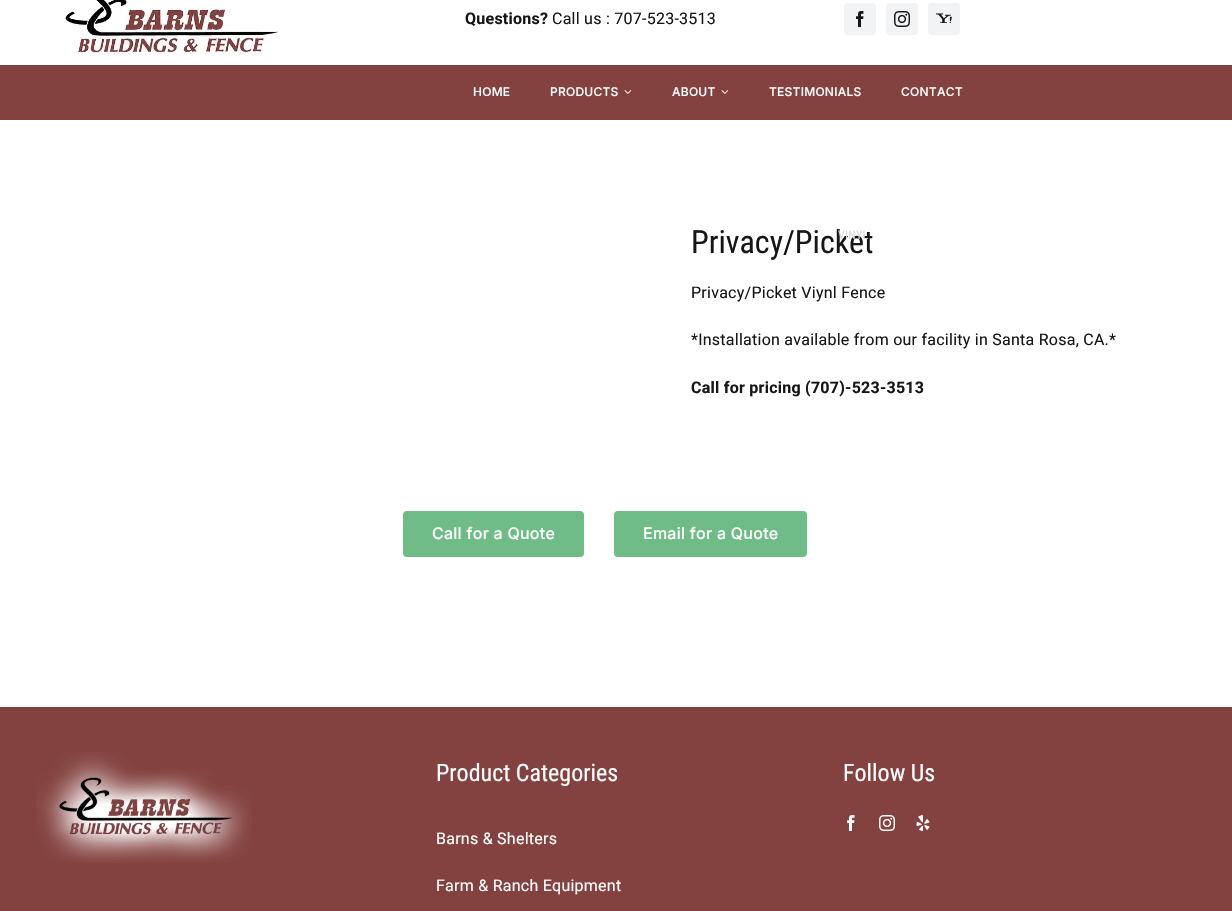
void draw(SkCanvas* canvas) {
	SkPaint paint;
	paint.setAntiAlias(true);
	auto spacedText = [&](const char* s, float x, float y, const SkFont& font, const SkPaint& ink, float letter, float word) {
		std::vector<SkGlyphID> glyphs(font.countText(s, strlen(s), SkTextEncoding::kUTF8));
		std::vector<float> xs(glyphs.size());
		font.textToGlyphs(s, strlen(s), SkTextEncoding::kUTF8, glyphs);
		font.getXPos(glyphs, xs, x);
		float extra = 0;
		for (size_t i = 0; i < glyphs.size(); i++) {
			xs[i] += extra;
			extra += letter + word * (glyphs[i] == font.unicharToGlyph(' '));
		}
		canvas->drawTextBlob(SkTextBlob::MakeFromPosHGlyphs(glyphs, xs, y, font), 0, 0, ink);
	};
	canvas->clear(0xffffffff);
	canvas->drawImageRect(SkImages::DeferredFromEncodedData(SkData::MakeFromFileName("img1.png")), SkRect::MakeXYWH(65, 0, 213, 55), SkSamplingOptions());
	SkFont f1(fontMgr->matchFamilyStyle("Roboto", SkFontStyle::Bold()), 16);
	f1.setSubpixel(true);
	paint.setColor(0xff141617);
	spacedText("Questions?", 465, 24, f1, paint, 0.25, 0);
	SkFont f2(fontMgr->matchFamilyStyle("Roboto", SkFontStyle::Normal()), 16);
	f2.setSubpixel(true);
	spacedText("Call us : 707-523-3513", 552, 24, f2, paint, 0.25, 0);
	paint.setColor(0xfff2f3f5);
	canvas->drawRoundRect(SkRect::MakeXYWH(844, 3, 32, 32), 4, 4, paint);
	canvas->drawImageRect(SkImages::DeferredFromEncodedData(SkData::MakeFromFileName("img2.png")), SkRect::MakeXYWH(856, 11, 8, 16), SkSamplingOptions());
	canvas->drawRoundRect(SkRect::MakeXYWH(886, 3, 32, 32), 4, 4, paint);
	canvas->drawImageRect(SkImages::DeferredFromEncodedData(SkData::MakeFromFileName("img3.png")), SkRect::MakeXYWH(894, 11, 16, 16), SkSamplingOptions());
	canvas->drawRoundRect(SkRect::MakeXYWH(928, 3, 32, 32), 4, 4, paint);
	canvas->drawImageRect(SkImages::DeferredFromEncodedData(SkData::MakeFromFileName("img4.png")), SkRect::MakeXYWH(936, 13, 16, 10), SkSamplingOptions());
	paint.setColor(0xff834240);
	canvas->drawRect(SkRect::MakeXYWH(0, 65, 1232, 55), paint);
	SkFont f3(fontMgr->matchFamilyStyle("Inter", SkFontStyle(500, SkFontStyle::kNormal_Width, SkFontStyle::kUpright_Slant)), 12);
	f3.setSubpixel(true);
	paint.setColor(0xffffffff);
	spacedText("HOME", 473, 96, f3, paint, 0.25, 0);
	spacedText("PRODUCTS", 550, 96, f3, paint, 0.25, 0);
	canvas->drawImageRect(SkImages::DeferredFromEncodedData(SkData::MakeFromFileName("img5.png")), SkRect::MakeXYWH(624, 90, 8, 4), SkSamplingOptions());
	SkFont f4(fontMgr->matchFamilyStyle("Roboto Condensed", SkFontStyle::Normal()), 32);
	f4.setSubpixel(true);
	paint.setColor(0xff141617);
	canvas->drawString("Privacy/Picket", 691, 253, f4, paint);
	SkFont f5(fontMgr->matchFamilyStyle("Roboto Condensed", SkFontStyle::Normal()), 12);
	f5.setSubpixel(true);
	paint.setColor(0xffd7d8d8);
	spacedText("VINYL", 838, 239, f5, paint, 0.25, 0);
	paint.setColor(0xffffffff);
	spacedText("ABOUT", 672, 96, f3, paint, 0.25, 0);
	canvas->drawImageRect(SkImages::DeferredFromEncodedData(SkData::MakeFromFileName("img5.png")), SkRect::MakeXYWH(721, 90, 8, 4), SkSamplingOptions());
	spacedText("TESTIMONIALS", 769, 96, f3, paint, 0.25, 0);
	spacedText("CONTACT", 901, 96, f3, paint, 0.25, 0);
	paint.setColor(0xff141617);
	spacedText("Privacy/Picket Viynl Fence", 691, 298, f2, paint, 0.25, 0);
	spacedText("*Installation available from our facility in Santa Rosa, CA.*", 691, 345, f2, paint, 0.25, 0);
	spacedText("Call for pricing (707)-523-3513", 691, 393, f1, paint, 0.25, 0);
	paint.setColor(0xff6fbc87);
	canvas->drawRoundRect(SkRect::MakeXYWH(403, 511, 181, 46), 4, 4, paint);
	SkFont f6(fontMgr->matchFamilyStyle("Inter", SkFontStyle(500, SkFontStyle::kNormal_Width, SkFontStyle::kUpright_Slant)), 16);
	f6.setSubpixel(true);
	paint.setColor(0xffffffff);
	spacedText("Call for a Quote", 432, 539, f6, paint, 0.25, 0);
	paint.setColor(0xff6fbc87);
	canvas->drawRoundRect(SkRect::MakeXYWH(614, 511, 193, 46), 4, 4, paint);
	paint.setColor(0xffffffff);
	spacedText("Email for a Quote", 643, 539, f6, paint, 0.25, 0);
	paint.setColor(0xff834240);
	canvas->drawRect(SkRect::MakeXYWH(0, 707, 1232, 204), paint);
	canvas->drawImageRect(SkImages::DeferredFromEncodedData(SkData::MakeFromFileName("img6.png")), SkRect::MakeXYWH(36, 752, 216, 111), SkSamplingOptions());
	SkFont f7(fontMgr->matchFamilyStyle("Roboto Condensed", SkFontStyle::Normal()), 24);
	f7.setSubpixel(true);
	paint.setColor(0xffffffff);
	canvas->drawString("Product Categories", 436, 781, f7, paint);
	spacedText("Barns & Shelters", 436, 844, f2, paint, 0.25, 0);
	spacedText("Farm & Ranch Equipment", 436, 891, f2, paint, 0.25, 0);
	canvas->drawString("Follow Us", 843, 781, f7, paint);
	canvas->drawImageRect(SkImages::DeferredFromEncodedData(SkData::MakeFromFileName("img7.png")), SkRect::MakeXYWH(847, 815, 8, 16), SkSamplingOptions());
	canvas->drawImageRect(SkImages::DeferredFromEncodedData(SkData::MakeFromFileName("img8.png")), SkRect::MakeXYWH(879, 815, 16, 16), SkSamplingOptions());
	canvas->drawImageRect(SkImages::DeferredFromEncodedData(SkData::MakeFromFileName("img9.png")), SkRect::MakeXYWH(916, 815, 14, 16), SkSamplingOptions());
}
